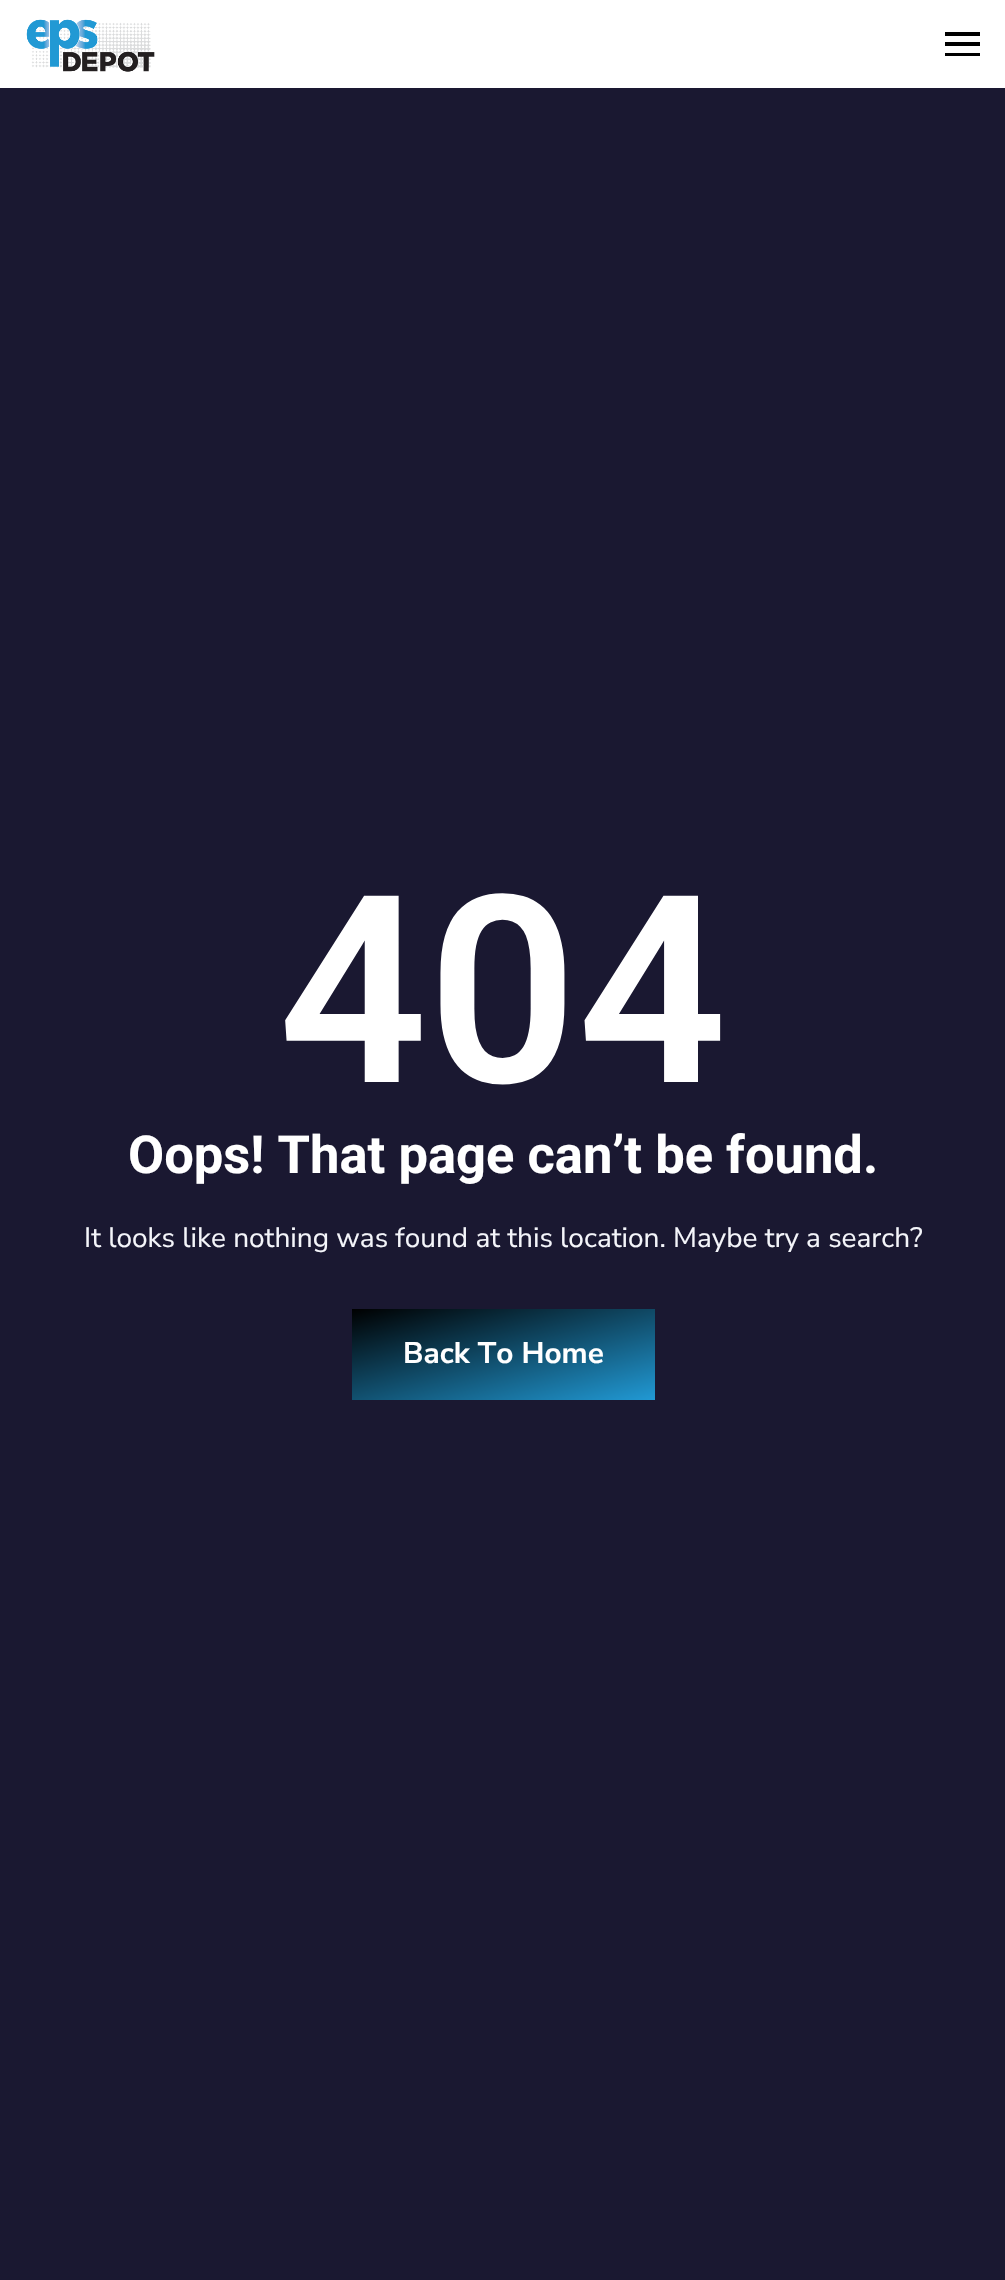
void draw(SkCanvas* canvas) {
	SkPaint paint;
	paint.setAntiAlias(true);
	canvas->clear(0xff1a1831);
	paint.setColor(0xffffffff);
	canvas->drawRect(SkRect::MakeXYWH(0, 0, 1005, 88), paint);
	canvas->drawImageRect(SkImages::DeferredFromEncodedData(SkData::MakeFromFileName("img1.png")), SkRect::MakeXYWH(26, 19, 129, 53), SkSamplingOptions());
	paint.setColor(0xff000000);
	canvas->drawRect(SkRect::MakeXYWH(945, 32, 35, 4), paint);
	canvas->drawRect(SkRect::MakeXYWH(945, 42, 35, 4), paint);
	canvas->drawRect(SkRect::MakeXYWH(945, 53, 35, 3), paint);
	SkFont f1(fontMgr->matchFamilyStyle("Roboto", SkFontStyle(600, SkFontStyle::kNormal_Width, SkFontStyle::kUpright_Slant)), 262);
	f1.setSubpixel(true);
	paint.setColor(0xffffffff);
	canvas->drawString("404", 278, 1082, f1, paint);
	SkFont f2(fontMgr->matchFamilyStyle("Roboto", SkFontStyle::Bold()), 52.5);
	f2.setSubpixel(true);
	canvas->drawString("Oops! That page can’t be found.", 128, 1173, f2, paint);
	SkFont f3(fontMgr->matchFamilyStyle("Nunito Sans", SkFontStyle::Normal()), 28);
	f3.setSubpixel(true);
	paint.setColor(0xfff4f5fa);
	canvas->drawString("It looks like nothing was found at this location. Maybe try a search?", 84, 1247, f3, paint);
	{
		const SkColor colors[] = {0xff2199d4, 0xff000000};
		const float stops[] = {0, 1};
		const SkPoint ends[] = {{525, 1435}, {482, 1274}};
		paint.setShader(SkGradientShader::MakeLinear(ends, colors, stops, 2, SkTileMode::kClamp));
		paint.setAlpha(255);
	}
	canvas->drawRect(SkRect::MakeXYWH(352, 1309, 303, 91), paint);
	SkFont f4(fontMgr->matchFamilyStyle("Nunito Sans", SkFontStyle::Bold()), 29.75);
	f4.setSubpixel(true);
	paint.setShader(nullptr);
	paint.setColor(0xffffffff);
	canvas->drawString("Back To Home", 403, 1363, f4, paint);
}
